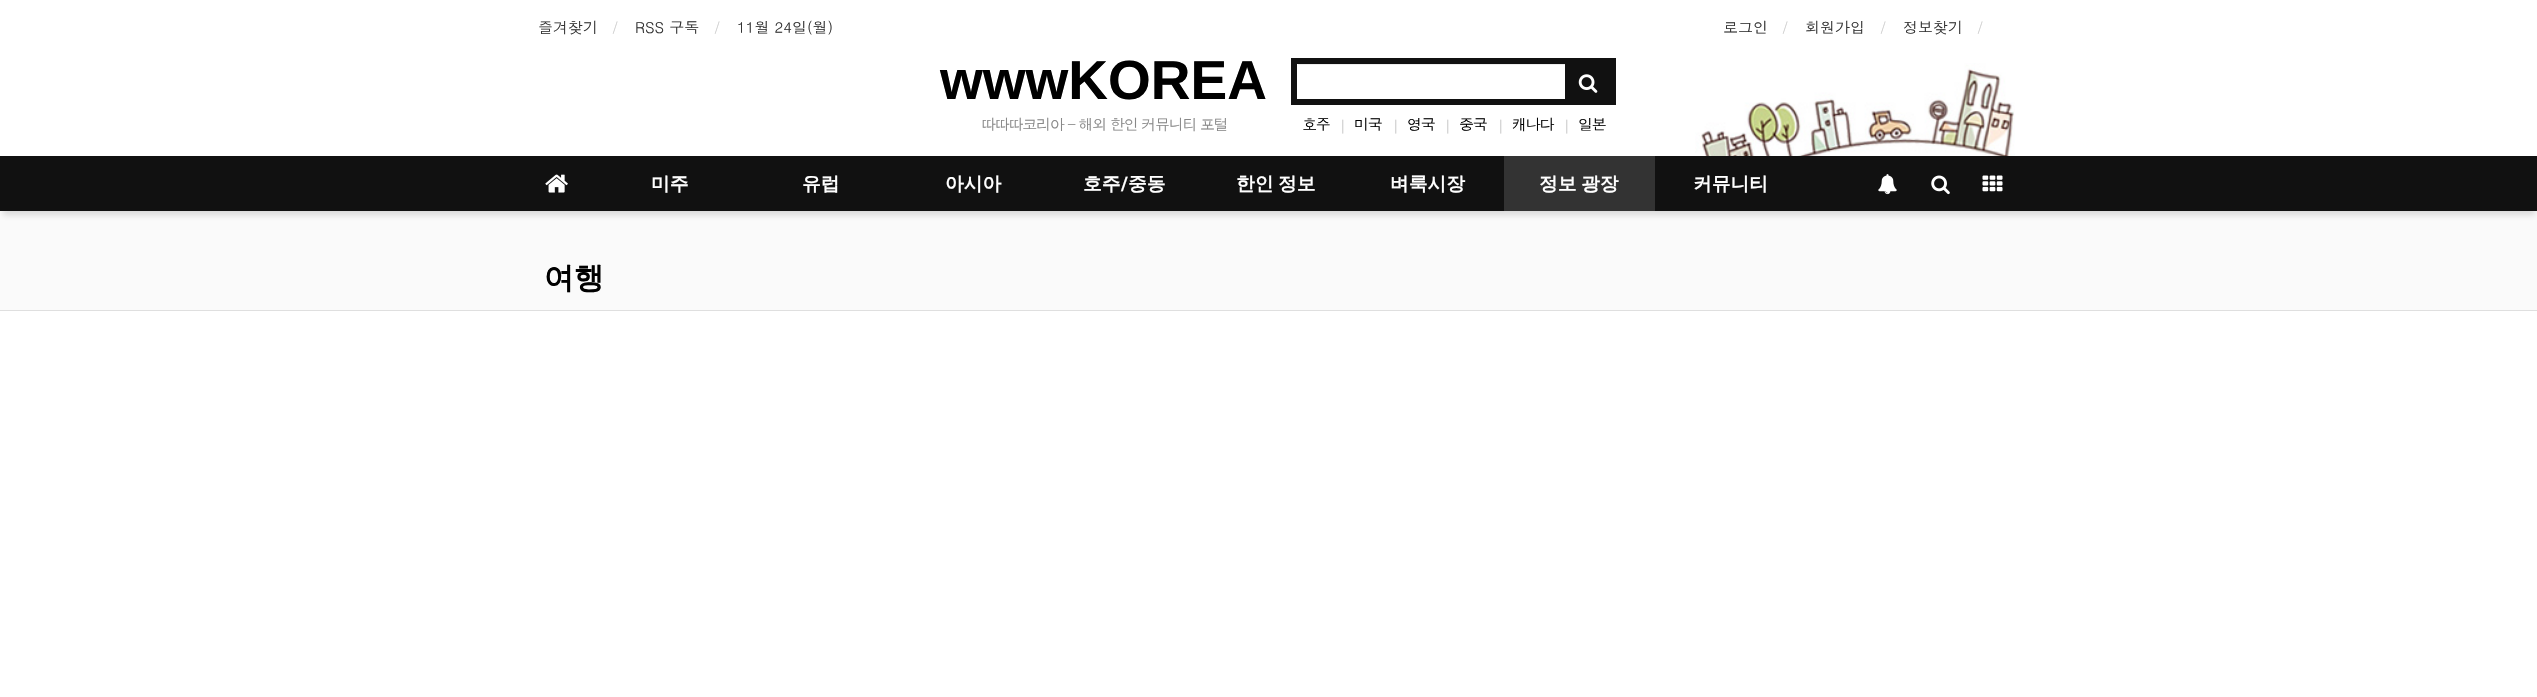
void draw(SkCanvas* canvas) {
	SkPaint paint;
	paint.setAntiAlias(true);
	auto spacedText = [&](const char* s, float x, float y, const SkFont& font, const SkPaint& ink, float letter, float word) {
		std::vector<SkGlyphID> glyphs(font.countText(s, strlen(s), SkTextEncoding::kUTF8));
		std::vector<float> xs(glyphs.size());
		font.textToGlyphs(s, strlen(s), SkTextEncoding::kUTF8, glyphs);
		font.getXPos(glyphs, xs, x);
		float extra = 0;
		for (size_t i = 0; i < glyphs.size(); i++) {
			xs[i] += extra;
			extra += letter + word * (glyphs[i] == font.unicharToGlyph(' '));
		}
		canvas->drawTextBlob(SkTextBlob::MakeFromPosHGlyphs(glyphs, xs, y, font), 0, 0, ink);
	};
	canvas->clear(0xffffffff);
	SkFont f1(fontMgr->matchFamilyStyle("Dotum", SkFontStyle::Normal()), 15);
	f1.setSubpixel(true);
	paint.setColor(0xff333333);
	canvas->drawString("즐겨찾기", 538, 33, f1, paint);
	paint.setColor(0xffcccccc);
	canvas->drawString("/", 612, 33, f1, paint);
	paint.setColor(0xff333333);
	canvas->drawString("RSS 구독", 635, 33, f1, paint);
	paint.setColor(0xffcccccc);
	canvas->drawString("/", 714, 33, f1, paint);
	paint.setColor(0xff333333);
	canvas->drawString("11월 24일(월)", 737, 33, f1, paint);
	canvas->drawString("로그인", 1723, 33, f1, paint);
	paint.setColor(0xffcccccc);
	canvas->drawString("/", 1782, 33, f1, paint);
	paint.setColor(0xff333333);
	canvas->drawString("회원가입", 1805, 33, f1, paint);
	paint.setColor(0xffcccccc);
	canvas->drawString("/", 1880, 33, f1, paint);
	paint.setColor(0xff333333);
	canvas->drawString("정보찾기", 1903, 33, f1, paint);
	paint.setColor(0xffcccccc);
	canvas->drawString("/", 1977, 33, f1, paint);
	canvas->drawImageRect(SkImages::DeferredFromEncodedData(SkData::MakeFromFileName("img1.png")), SkRect::MakeXYWH(1695, 63, 320, 93), SkSamplingOptions());
	SkFont f2(fontMgr->matchFamilyStyle("Liberation Sans", SkFontStyle::Bold()), 55);
	f2.setSubpixel(true);
	paint.setColor(0xff000000);
	canvas->drawString("wwwKOREA", 940, 99, f2, paint);
	paint.setColor(0xff888888);
	spacedText("따따따코리아 - 해외 한인 커뮤니티 포털", 981, 130, f1, paint, -1.25, 0);
	paint.setColor(0xff111111);
	canvas->drawRect(SkRect::MakeXYWH(1291, 58, 325, 47), paint);
	paint.setColor(0xffffffff);
	canvas->drawRect(SkRect::MakeXYWH(1297, 64, 268, 35), paint);
	paint.setColor(0xffececec);
	canvas->drawRect(SkRect::MakeXYWH(1298, 64, 267, 1), paint);
	canvas->drawImageRect(SkImages::DeferredFromEncodedData(SkData::MakeFromFileName("img2.png")), SkRect::MakeXYWH(1578, 74, 20, 19), SkSamplingOptions());
	paint.setColor(0xff000000);
	spacedText("호주", 1302, 130, f1, paint, -1.25, 0);
	paint.setColor(0xffcccccc);
	spacedText("|", 1339, 132, f1, paint, -1.25, 0);
	paint.setColor(0xff000000);
	spacedText("미국", 1354, 130, f1, paint, -1.25, 0);
	paint.setColor(0xffcccccc);
	spacedText("|", 1392, 132, f1, paint, -1.25, 0);
	paint.setColor(0xff000000);
	spacedText("영국", 1407, 130, f1, paint, -1.25, 0);
	paint.setColor(0xffcccccc);
	spacedText("|", 1444, 132, f1, paint, -1.25, 0);
	paint.setColor(0xff000000);
	spacedText("중국", 1459, 130, f1, paint, -1.25, 0);
	paint.setColor(0xffcccccc);
	spacedText("|", 1497, 132, f1, paint, -1.25, 0);
	paint.setColor(0xff000000);
	spacedText("캐나다", 1512, 130, f1, paint, -1.25, 0);
	paint.setColor(0xffcccccc);
	spacedText("|", 1563, 132, f1, paint, -1.25, 0);
	paint.setColor(0xff000000);
	spacedText("일본", 1578, 130, f1, paint, -1.25, 0);
	paint.setColor(0xfffafafa);
	canvas->drawRect(SkRect::MakeXYWH(0, 211, 2537, 99), paint);
	paint.setColor(0x26191919);
	paint.setMaskFilter(SkMaskFilter::MakeBlur(kNormal_SkBlurStyle, 3));
	canvas->drawRect(SkRect::MakeXYWH(3, 165, 2532, 50), paint);
	paint.setMaskFilter(nullptr);
	paint.setColor(0xff111111);
	canvas->drawRect(SkRect::MakeXYWH(0, 156, 2537, 55), paint);
	canvas->drawImageRect(SkImages::DeferredFromEncodedData(SkData::MakeFromFileName("img3.png")), SkRect::MakeXYWH(545, 174, 23, 19), SkSamplingOptions());
	SkFont f3(fontMgr->matchFamilyStyle("WenQuanYi Zen Hei", SkFontStyle::Bold()), 18.75);
	f3.setSubpixel(true);
	paint.setColor(0xffffffff);
	canvas->drawString("미주", 651, 190, f3, paint);
	canvas->drawString("유럽", 802, 190, f3, paint);
	canvas->drawString("아시아", 945, 190, f3, paint);
	canvas->drawString("호주", 1083, 190, f3, paint);
	SkFont f4(fontMgr->matchFamilyStyle("Roboto", SkFontStyle::Bold()), 18.75);
	f4.setSubpixel(true);
	canvas->drawString("/", 1121, 190, f4, paint);
	canvas->drawString("중동", 1128, 190, f3, paint);
	spacedText("한인 정보", 1236, 190, f3, paint, 0, -1);
	canvas->drawString("벼룩시장", 1390, 190, f3, paint);
	paint.setColor(0xff333333);
	canvas->drawRect(SkRect::MakeXYWH(1504, 156, 151, 55), paint);
	paint.setColor(0xffffffff);
	spacedText("정보 광장", 1539, 190, f3, paint, 0, -1);
	canvas->drawString("커뮤니티", 1693, 190, f3, paint);
	canvas->drawImageRect(SkImages::DeferredFromEncodedData(SkData::MakeFromFileName("img4.png")), SkRect::MakeXYWH(1878, 174, 19, 21), SkSamplingOptions());
	canvas->drawImageRect(SkImages::DeferredFromEncodedData(SkData::MakeFromFileName("img5.png")), SkRect::MakeXYWH(1931, 175, 19, 20), SkSamplingOptions());
	canvas->drawImageRect(SkImages::DeferredFromEncodedData(SkData::MakeFromFileName("img6.png")), SkRect::MakeXYWH(1982, 175, 21, 17), SkSamplingOptions());
	paint.setColor(0xffdfdfdf);
	canvas->drawRect(SkRect::MakeXYWH(0, 310, 2537, 1), paint);
	SkFont f5(fontMgr->matchFamilyStyle("WenQuanYi Zen Hei", SkFontStyle::Bold()), 30);
	f5.setSubpixel(true);
	paint.setColor(0xff000000);
	canvas->drawString("여행", 544, 288, f5, paint);
}
